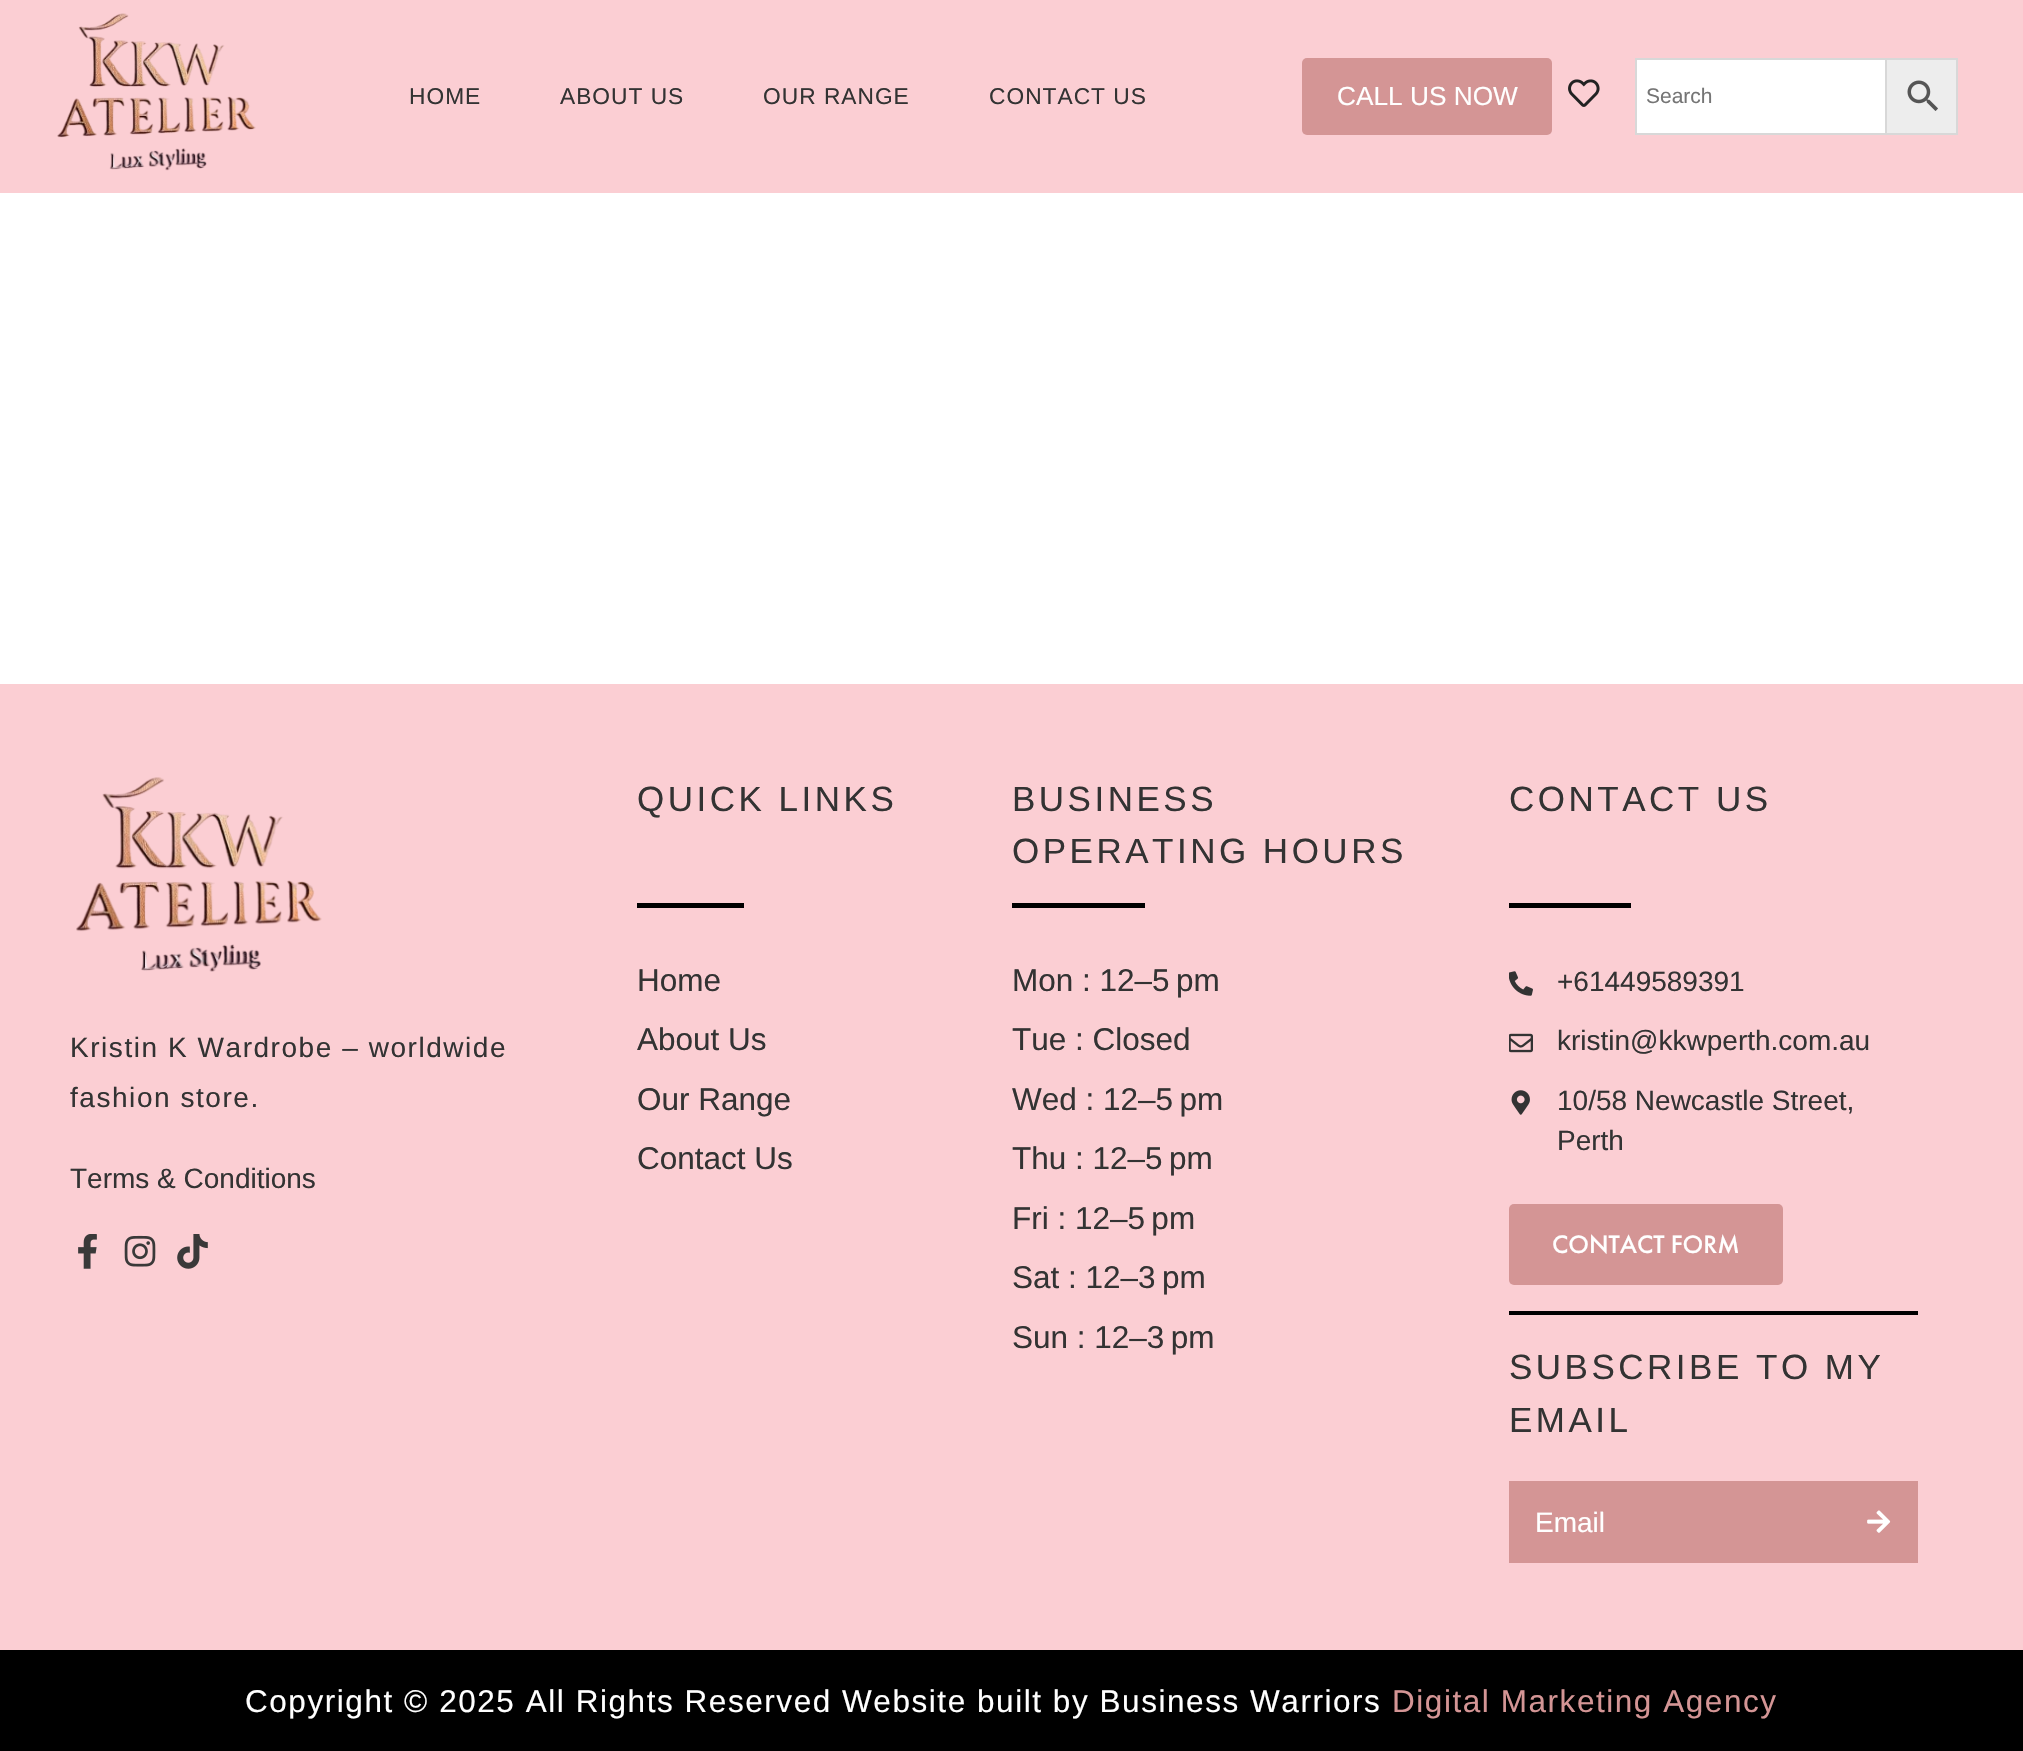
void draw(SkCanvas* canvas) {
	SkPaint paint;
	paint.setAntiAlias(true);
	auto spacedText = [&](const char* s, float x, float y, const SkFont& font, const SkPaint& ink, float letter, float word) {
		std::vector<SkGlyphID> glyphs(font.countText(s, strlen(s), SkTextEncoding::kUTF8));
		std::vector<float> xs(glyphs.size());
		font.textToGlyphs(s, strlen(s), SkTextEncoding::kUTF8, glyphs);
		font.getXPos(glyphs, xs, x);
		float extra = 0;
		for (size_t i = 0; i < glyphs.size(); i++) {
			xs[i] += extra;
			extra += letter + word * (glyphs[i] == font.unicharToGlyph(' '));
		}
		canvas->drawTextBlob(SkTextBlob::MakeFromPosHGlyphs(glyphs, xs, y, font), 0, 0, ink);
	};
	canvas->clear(0xffffffff);
	paint.setColor(0xfffbced3);
	canvas->drawRect(SkRect::MakeXYWH(0, 0, 2023, 193), paint);
	canvas->drawImageRect(SkImages::DeferredFromEncodedData(SkData::MakeFromFileName("img1.png")), SkRect::MakeXYWH(57, 13, 199, 158), SkSamplingOptions());
	SkFont f1(fontMgr->matchFamilyStyle("Liberation Sans", SkFontStyle::Normal()), 22.75);
	f1.setSubpixel(true);
	paint.setColor(0xff333333);
	spacedText("HOME", 409, 104, f1, paint, 1, 0);
	spacedText("ABOUT US", 560, 104, f1, paint, 1, 0);
	spacedText("OUR RANGE", 763, 104, f1, paint, 1, 0);
	spacedText("CONTACT US", 989, 104, f1, paint, 1, 0);
	paint.setColor(0xffd49595);
	canvas->drawRoundRect(SkRect::MakeXYWH(1302, 58, 250, 77), 5, 5, paint);
	SkFont f2(fontMgr->matchFamilyStyle("Liberation Sans", SkFontStyle::Normal()), 26.25);
	f2.setSubpixel(true);
	paint.setColor(0xffffffff);
	canvas->drawString("CALL US NOW", 1337, 105, f2, paint);
	canvas->drawImageRect(SkImages::DeferredFromEncodedData(SkData::MakeFromFileName("img2.png")), SkRect::MakeXYWH(1568, 79, 32, 28), SkSamplingOptions());
	paint.setColor(0xffededed);
	canvas->drawRect(SkRect::MakeXYWH(1886, 59, 71, 75), paint);
	paint.setStroke(true);
	paint.setStrokeWidth(2);
	paint.setColor(0xffd8d8d8);
	canvas->drawRect(SkRect::MakeXYWH(1886, 59, 71, 75), paint);
	paint.setStroke(false);
	paint.setColor(0xffffffff);
	canvas->drawRect(SkRect::MakeXYWH(1636, 59, 250, 75), paint);
	paint.setStroke(true);
	paint.setColor(0xffd8d8d8);
	canvas->drawRect(SkRect::MakeXYWH(1636, 59, 250, 75), paint);
	SkFont f3(fontMgr->matchFamilyStyle("Liberation Sans", SkFontStyle::Normal()), 21);
	f3.setSubpixel(true);
	paint.setStroke(false);
	paint.setColor(0xff757575);
	canvas->drawString("Search", 1646, 103, f3, paint);
	canvas->drawImageRect(SkImages::DeferredFromEncodedData(SkData::MakeFromFileName("img3.png")), SkRect::MakeXYWH(1907, 80, 31, 31), SkSamplingOptions());
	paint.setColor(0xfffbced3);
	canvas->drawRect(SkRect::MakeXYWH(0, 684, 2023, 966), paint);
	canvas->drawImageRect(SkImages::DeferredFromEncodedData(SkData::MakeFromFileName("img4.png")), SkRect::MakeXYWH(76, 777, 246, 195), SkSamplingOptions());
	SkFont f4(fontMgr->matchFamilyStyle("Liberation Sans", SkFontStyle::Normal()), 28);
	f4.setSubpixel(true);
	paint.setColor(0xff333333);
	spacedText("Kristin K Wardrobe – worldwide", 70, 1057, f4, paint, 1.55, 0);
	spacedText("fashion store.", 70, 1107, f4, paint, 1.55, 0);
	canvas->drawString("Terms & Conditions", 70, 1188, f4, paint);
	canvas->drawImageRect(SkImages::DeferredFromEncodedData(SkData::MakeFromFileName("img5.png")), SkRect::MakeXYWH(78, 1234, 19, 35), SkSamplingOptions());
	canvas->drawImageRect(SkImages::DeferredFromEncodedData(SkData::MakeFromFileName("img6.png")), SkRect::MakeXYWH(124, 1235, 32, 32), SkSamplingOptions());
	canvas->drawImageRect(SkImages::DeferredFromEncodedData(SkData::MakeFromFileName("img7.png")), SkRect::MakeXYWH(177, 1234, 31, 35), SkSamplingOptions());
	SkFont f5(fontMgr->matchFamilyStyle("Liberation Sans", SkFontStyle::Normal()), 35);
	f5.setSubpixel(true);
	spacedText("QUICK LINKS", 637, 811, f5, paint, 3.5, 0);
	paint.setColor(0xff000000);
	canvas->drawRect(SkRect::MakeXYWH(637, 903, 107, 5), paint);
	SkFont f6(fontMgr->matchFamilyStyle("Liberation Sans", SkFontStyle::Normal()), 31.5);
	f6.setSubpixel(true);
	paint.setColor(0xff333333);
	canvas->drawString("Home", 637, 991, f6, paint);
	canvas->drawString("About Us", 637, 1050, f6, paint);
	canvas->drawString("Our Range", 637, 1110, f6, paint);
	canvas->drawString("Contact Us", 637, 1169, f6, paint);
	spacedText("BUSINESS", 1012, 811, f5, paint, 3.5, 0);
	spacedText("OPERATING HOURS", 1012, 863, f5, paint, 3.5, 0);
	paint.setColor(0xff000000);
	canvas->drawRect(SkRect::MakeXYWH(1012, 903, 133, 5), paint);
	paint.setColor(0xff333333);
	canvas->drawString("Mon : 12–5 pm", 1012, 991, f6, paint);
	canvas->drawString("Tue : Closed", 1012, 1050, f6, paint);
	canvas->drawString("Wed : 12–5 pm", 1012, 1110, f6, paint);
	canvas->drawString("Thu : 12–5 pm", 1012, 1169, f6, paint);
	canvas->drawString("Fri : 12–5 pm", 1012, 1229, f6, paint);
	canvas->drawString("Sat : 12–3 pm", 1012, 1288, f6, paint);
	canvas->drawString("Sun : 12–3 pm", 1012, 1348, f6, paint);
	spacedText("CONTACT US", 1509, 811, f5, paint, 3.5, 0);
	paint.setColor(0xff000000);
	canvas->drawRect(SkRect::MakeXYWH(1509, 903, 122, 5), paint);
	canvas->drawImageRect(SkImages::DeferredFromEncodedData(SkData::MakeFromFileName("img8.png")), SkRect::MakeXYWH(1509, 971, 24, 25), SkSamplingOptions());
	paint.setColor(0xff333333);
	canvas->drawString("+61449589391", 1557, 991, f4, paint);
	canvas->drawImageRect(SkImages::DeferredFromEncodedData(SkData::MakeFromFileName("img9.png")), SkRect::MakeXYWH(1509, 1033, 24, 20), SkSamplingOptions());
	canvas->drawString("kristin@kkwperth.com.au", 1557, 1050, f4, paint);
	canvas->drawImageRect(SkImages::DeferredFromEncodedData(SkData::MakeFromFileName("img10.png")), SkRect::MakeXYWH(1511, 1090, 19, 25), SkSamplingOptions());
	canvas->drawString("10/58 Newcastle Street,", 1557, 1110, f4, paint);
	canvas->drawString("Perth", 1557, 1150, f4, paint);
	paint.setColor(0xffd49595);
	canvas->drawRoundRect(SkRect::MakeXYWH(1509, 1204, 274, 81), 5, 5, paint);
	SkFont f7(fontMgr->matchFamilyStyle("Futura PT", SkFontStyle(500, SkFontStyle::kNormal_Width, SkFontStyle::kUpright_Slant)), 26.25);
	f7.setSubpixel(true);
	paint.setColor(0xffffffff);
	canvas->drawString("CONTACT FORM", 1552, 1253, f7, paint);
	paint.setColor(0xff000000);
	canvas->drawRect(SkRect::MakeXYWH(1509, 1311, 409, 4), paint);
	paint.setColor(0xff333333);
	spacedText("SUBSCRIBE TO MY", 1509, 1379, f5, paint, 3.5, 0);
	spacedText("EMAIL", 1509, 1432, f5, paint, 3.5, 0);
	paint.setColor(0xffd49595);
	canvas->drawRect(SkRect::MakeXYWH(1509, 1481, 409, 82), paint);
	paint.setColor(0xffffffff);
	canvas->drawString("Email", 1535, 1532, f4, paint);
	canvas->drawImageRect(SkImages::DeferredFromEncodedData(SkData::MakeFromFileName("img11.png")), SkRect::MakeXYWH(1867, 1510, 24, 23), SkSamplingOptions());
	paint.setColor(0xff000000);
	canvas->drawRect(SkRect::MakeXYWH(0, 1650, 2023, 101), paint);
	paint.setColor(0xffffffff);
	spacedText("Copyright © 2025 All Rights Reserved Website built by Business Warriors", 245, 1712, f6, paint, 1.55, 0);
	paint.setColor(0xffd49595);
	spacedText("Digital Marketing Agency", 1392, 1712, f6, paint, 1.55, 0);
}
